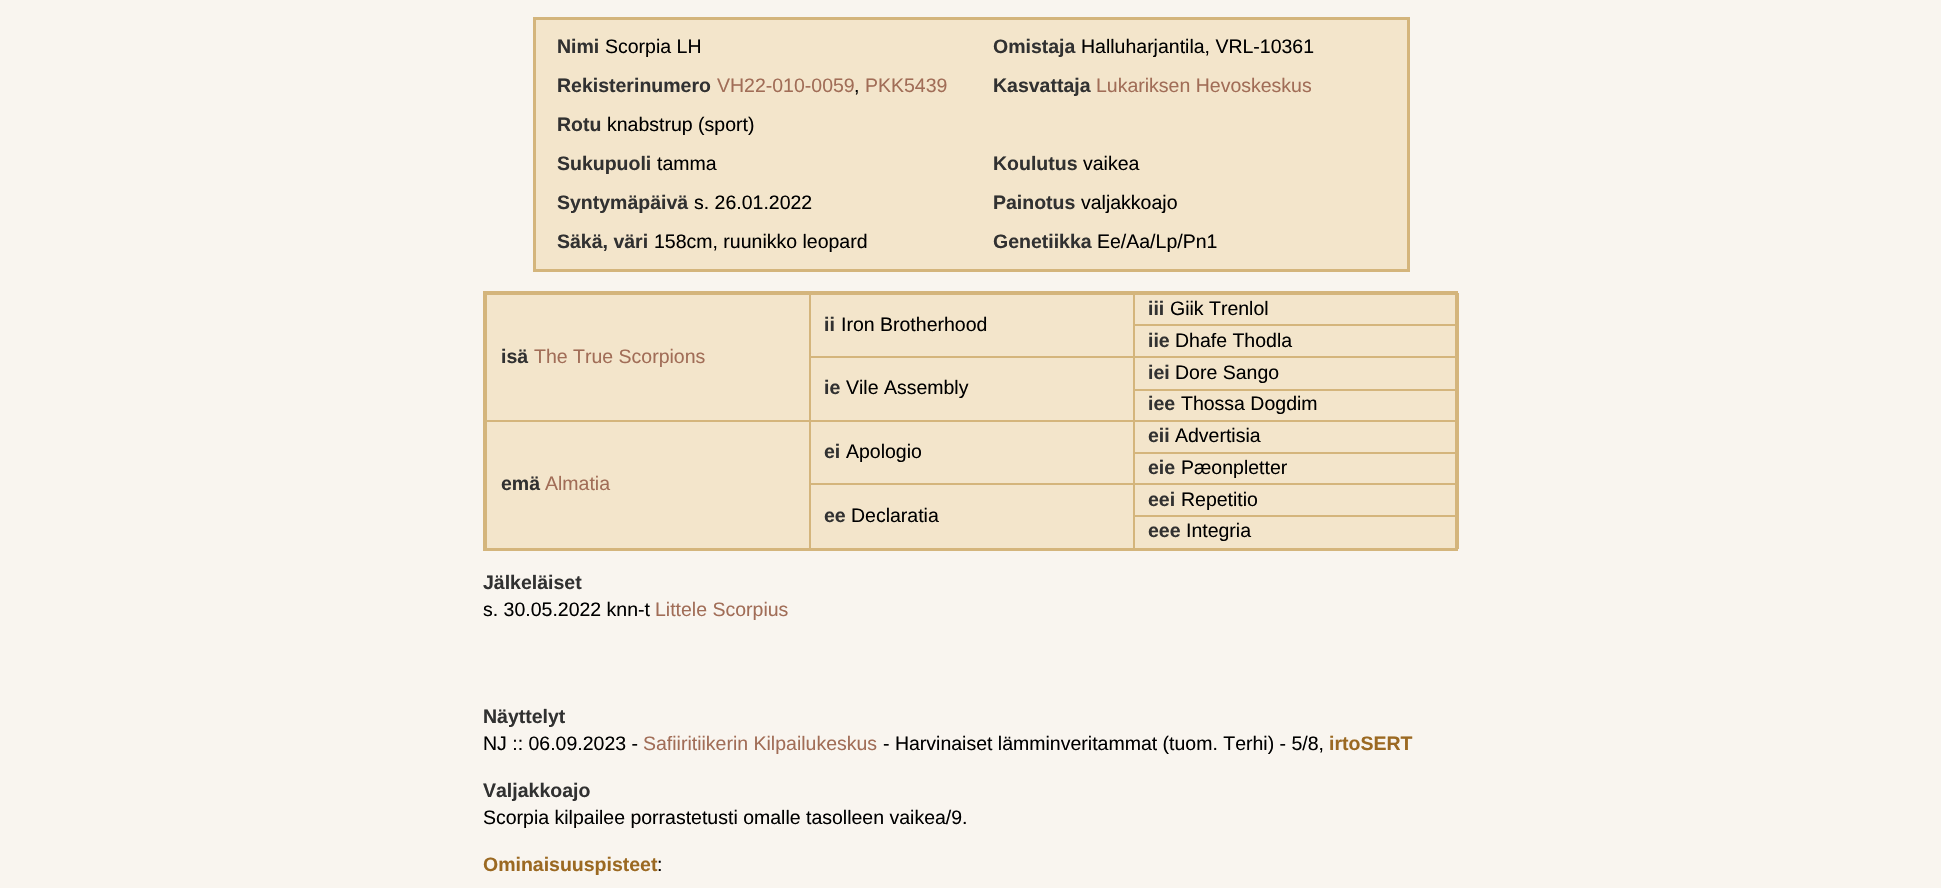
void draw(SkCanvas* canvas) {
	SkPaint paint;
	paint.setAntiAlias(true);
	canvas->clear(0xfff9f5ef);
	paint.setColor(0xffd4b57c);
	canvas->drawRect(SkRect::MakeXYWH(533, 17, 877, 3), paint);
	canvas->drawRect(SkRect::MakeXYWH(1407, 17, 3, 255), paint);
	canvas->drawRect(SkRect::MakeXYWH(533, 269, 877, 3), paint);
	canvas->drawRect(SkRect::MakeXYWH(533, 17, 3, 255), paint);
	paint.setColor(0xfff3e5cb);
	canvas->drawRect(SkRect::MakeXYWH(536, 20, 871, 249), paint);
	SkFont f1(fontMgr->matchFamilyStyle("Liberation Sans", SkFontStyle::Bold()), 19.5);
	f1.setSubpixel(true);
	paint.setColor(0xff313131);
	canvas->drawString("Nimi", 557, 53, f1, paint);
	SkFont f2(fontMgr->matchFamilyStyle("Liberation Sans", SkFontStyle::Normal()), 19.5);
	f2.setSubpixel(true);
	paint.setColor(0xff000000);
	canvas->drawString("Scorpia LH", 605, 53, f2, paint);
	paint.setColor(0xff313131);
	canvas->drawString("Rekisterinumero", 557, 92, f1, paint);
	paint.setColor(0xffa16d57);
	canvas->drawString("VH22-010-0059", 717, 92, f2, paint);
	paint.setColor(0xff000000);
	canvas->drawString(",", 854, 92, f2, paint);
	paint.setColor(0xffa16d57);
	canvas->drawString("PKK5439", 865, 92, f2, paint);
	paint.setColor(0xff313131);
	canvas->drawString("Rotu", 557, 131, f1, paint);
	paint.setColor(0xff000000);
	canvas->drawString("knabstrup (sport)", 607, 131, f2, paint);
	paint.setColor(0xff313131);
	canvas->drawString("Sukupuoli", 557, 170, f1, paint);
	paint.setColor(0xff000000);
	canvas->drawString("tamma", 657, 170, f2, paint);
	paint.setColor(0xff313131);
	canvas->drawString("Syntymäpäivä", 557, 209, f1, paint);
	paint.setColor(0xff000000);
	canvas->drawString("s. 26.01.2022", 694, 209, f2, paint);
	paint.setColor(0xff313131);
	canvas->drawString("Säkä, väri", 557, 248, f1, paint);
	paint.setColor(0xff000000);
	canvas->drawString("158cm, ruunikko leopard", 654, 248, f2, paint);
	paint.setColor(0xff313131);
	canvas->drawString("Omistaja", 993, 53, f1, paint);
	paint.setColor(0xff000000);
	canvas->drawString("Halluharjantila, VRL-10361", 1081, 53, f2, paint);
	paint.setColor(0xff313131);
	canvas->drawString("Kasvattaja", 993, 92, f1, paint);
	paint.setColor(0xffa16d57);
	canvas->drawString("Lukariksen Hevoskeskus", 1096, 92, f2, paint);
	paint.setColor(0xff313131);
	canvas->drawString("Koulutus", 993, 170, f1, paint);
	paint.setColor(0xff000000);
	canvas->drawString("vaikea", 1083, 170, f2, paint);
	paint.setColor(0xff313131);
	canvas->drawString("Painotus", 993, 209, f1, paint);
	paint.setColor(0xff000000);
	canvas->drawString("valjakkoajo", 1081, 209, f2, paint);
	paint.setColor(0xff313131);
	canvas->drawString("Genetiikka", 993, 248, f1, paint);
	paint.setColor(0xff000000);
	canvas->drawString("Ee/Aa/Lp/Pn1", 1097, 248, f2, paint);
	paint.setColor(0xffd4b57c);
	canvas->drawRect(SkRect::MakeXYWH(1133, 294, 325, 1), paint);
	canvas->drawRect(SkRect::MakeXYWH(1133, 324, 325, 2), paint);
	canvas->drawRect(SkRect::MakeXYWH(1133, 356, 325, 2), paint);
	canvas->drawRect(SkRect::MakeXYWH(1133, 389, 325, 2), paint);
	canvas->drawRect(SkRect::MakeXYWH(1133, 420, 325, 2), paint);
	canvas->drawRect(SkRect::MakeXYWH(1133, 452, 325, 2), paint);
	canvas->drawRect(SkRect::MakeXYWH(1133, 483, 325, 2), paint);
	canvas->drawRect(SkRect::MakeXYWH(1133, 515, 325, 2), paint);
	canvas->drawRect(SkRect::MakeXYWH(1133, 515, 2, 34), paint);
	canvas->drawRect(SkRect::MakeXYWH(1133, 483, 2, 33), paint);
	canvas->drawRect(SkRect::MakeXYWH(809, 483, 325, 2), paint);
	canvas->drawRect(SkRect::MakeXYWH(1133, 452, 2, 33), paint);
	canvas->drawRect(SkRect::MakeXYWH(1133, 420, 2, 33), paint);
	canvas->drawRect(SkRect::MakeXYWH(809, 420, 325, 2), paint);
	canvas->drawRect(SkRect::MakeXYWH(1133, 389, 2, 33), paint);
	canvas->drawRect(SkRect::MakeXYWH(1133, 356, 2, 34), paint);
	canvas->drawRect(SkRect::MakeXYWH(809, 356, 325, 2), paint);
	canvas->drawRect(SkRect::MakeXYWH(1133, 324, 2, 33), paint);
	canvas->drawRect(SkRect::MakeXYWH(1133, 293, 2, 33), paint);
	canvas->drawRect(SkRect::MakeXYWH(809, 294, 325, 1), paint);
	canvas->drawRect(SkRect::MakeXYWH(809, 483, 2, 66), paint);
	canvas->drawRect(SkRect::MakeXYWH(809, 420, 2, 65), paint);
	canvas->drawRect(SkRect::MakeXYWH(485, 420, 325, 2), paint);
	canvas->drawRect(SkRect::MakeXYWH(809, 356, 2, 66), paint);
	canvas->drawRect(SkRect::MakeXYWH(809, 293, 2, 64), paint);
	canvas->drawRect(SkRect::MakeXYWH(485, 294, 325, 1), paint);
	canvas->drawRect(SkRect::MakeXYWH(486, 420, 1, 129), paint);
	canvas->drawRect(SkRect::MakeXYWH(486, 293, 1, 129), paint);
	canvas->drawRect(SkRect::MakeXYWH(483, 291, 975, 3), paint);
	canvas->drawRect(SkRect::MakeXYWH(1455, 291, 3, 260), paint);
	canvas->drawRect(SkRect::MakeXYWH(483, 548, 975, 3), paint);
	canvas->drawRect(SkRect::MakeXYWH(483, 291, 3, 260), paint);
	paint.setColor(0xfff3e5cb);
	canvas->drawRect(SkRect::MakeXYWH(1135, 295, 320, 29), paint);
	paint.setColor(0xff313131);
	canvas->drawString("iii", 1148, 315, f1, paint);
	paint.setColor(0xff000000);
	canvas->drawString("Giik Trenlol", 1170, 315, f2, paint);
	paint.setColor(0xfff3e5cb);
	canvas->drawRect(SkRect::MakeXYWH(811, 295, 322, 61), paint);
	paint.setColor(0xff313131);
	canvas->drawString("ii", 824, 331, f1, paint);
	paint.setColor(0xff000000);
	canvas->drawString("Iron Brotherhood", 841, 331, f2, paint);
	paint.setColor(0xfff3e5cb);
	canvas->drawRect(SkRect::MakeXYWH(487, 295, 322, 125), paint);
	paint.setColor(0xff313131);
	canvas->drawString("isä", 501, 363, f1, paint);
	paint.setColor(0xffa16d57);
	canvas->drawString("The True Scorpions", 534, 363, f2, paint);
	paint.setColor(0xfff3e5cb);
	canvas->drawRect(SkRect::MakeXYWH(1135, 326, 320, 30), paint);
	paint.setColor(0xff313131);
	canvas->drawString("iie", 1148, 347, f1, paint);
	paint.setColor(0xff000000);
	canvas->drawString("Dhafe Thodla", 1175, 347, f2, paint);
	paint.setColor(0xfff3e5cb);
	canvas->drawRect(SkRect::MakeXYWH(1135, 358, 320, 31), paint);
	paint.setColor(0xff313131);
	canvas->drawString("iei", 1148, 379, f1, paint);
	paint.setColor(0xff000000);
	canvas->drawString("Dore Sango", 1175, 379, f2, paint);
	paint.setColor(0xfff3e5cb);
	canvas->drawRect(SkRect::MakeXYWH(811, 358, 322, 62), paint);
	paint.setColor(0xff313131);
	canvas->drawString("ie", 824, 394, f1, paint);
	paint.setColor(0xff000000);
	canvas->drawString("Vile Assembly", 846, 394, f2, paint);
	paint.setColor(0xfff3e5cb);
	canvas->drawRect(SkRect::MakeXYWH(1135, 391, 320, 29), paint);
	paint.setColor(0xff313131);
	canvas->drawString("iee", 1148, 410, f1, paint);
	paint.setColor(0xff000000);
	canvas->drawString("Thossa Dogdim", 1181, 410, f2, paint);
	paint.setColor(0xfff3e5cb);
	canvas->drawRect(SkRect::MakeXYWH(1135, 422, 320, 30), paint);
	paint.setColor(0xff313131);
	canvas->drawString("eii", 1148, 442, f1, paint);
	paint.setColor(0xff000000);
	canvas->drawString("Advertisia", 1175, 442, f2, paint);
	paint.setColor(0xfff3e5cb);
	canvas->drawRect(SkRect::MakeXYWH(811, 422, 322, 61), paint);
	paint.setColor(0xff313131);
	canvas->drawString("ei", 824, 458, f1, paint);
	paint.setColor(0xff000000);
	canvas->drawString("Apologio", 846, 458, f2, paint);
	paint.setColor(0xfff3e5cb);
	canvas->drawRect(SkRect::MakeXYWH(487, 422, 322, 126), paint);
	paint.setColor(0xff313131);
	canvas->drawString("emä", 501, 490, f1, paint);
	paint.setColor(0xffa16d57);
	canvas->drawString("Almatia", 545, 490, f2, paint);
	paint.setColor(0xfff3e5cb);
	canvas->drawRect(SkRect::MakeXYWH(1135, 454, 320, 29), paint);
	paint.setColor(0xff313131);
	canvas->drawString("eie", 1148, 474, f1, paint);
	paint.setColor(0xff000000);
	canvas->drawString("Pæonpletter", 1181, 474, f2, paint);
	paint.setColor(0xfff3e5cb);
	canvas->drawRect(SkRect::MakeXYWH(1135, 485, 320, 30), paint);
	paint.setColor(0xff313131);
	canvas->drawString("eei", 1148, 506, f1, paint);
	paint.setColor(0xff000000);
	canvas->drawString("Repetitio", 1181, 506, f2, paint);
	paint.setColor(0xfff3e5cb);
	canvas->drawRect(SkRect::MakeXYWH(811, 485, 322, 63), paint);
	paint.setColor(0xff313131);
	canvas->drawString("ee", 824, 522, f1, paint);
	paint.setColor(0xff000000);
	canvas->drawString("Declaratia", 851, 522, f2, paint);
	paint.setColor(0xfff3e5cb);
	canvas->drawRect(SkRect::MakeXYWH(1135, 517, 320, 31), paint);
	paint.setColor(0xffd4b57c);
	canvas->drawRect(SkRect::MakeXYWH(1458, 293, 1, 256), paint);
	paint.setColor(0xff313131);
	canvas->drawString("eee", 1148, 537, f1, paint);
	paint.setColor(0xff000000);
	canvas->drawString("Integria", 1186, 537, f2, paint);
	paint.setColor(0xff313131);
	canvas->drawString("Jälkeläiset", 483, 589, f1, paint);
	paint.setColor(0xff000000);
	canvas->drawString("s. 30.05.2022 knn-t", 483, 616, f2, paint);
	paint.setColor(0xffa16d57);
	canvas->drawString("Littele Scorpius", 655, 616, f2, paint);
	paint.setColor(0xff313131);
	canvas->drawString("Näyttelyt", 483, 723, f1, paint);
	paint.setColor(0xff000000);
	canvas->drawString("NJ :: 06.09.2023 -", 483, 750, f2, paint);
	paint.setColor(0xffa16d57);
	canvas->drawString("Safiiritiikerin Kilpailukeskus", 643, 750, f2, paint);
	paint.setColor(0xff000000);
	canvas->drawString("- Harvinaiset lämminveritammat (tuom. Terhi) - 5/8,", 883, 750, f2, paint);
	paint.setColor(0xff9b6922);
	canvas->drawString("irtoSERT", 1329, 750, f1, paint);
	paint.setColor(0xff313131);
	canvas->drawString("Valjakkoajo", 483, 797, f1, paint);
	paint.setColor(0xff000000);
	canvas->drawString("Scorpia kilpailee porrastetusti omalle tasolleen vaikea/9.", 483, 824, f2, paint);
	paint.setColor(0xff9b6922);
	canvas->drawString("Ominaisuuspisteet", 483, 871, f1, paint);
	paint.setColor(0xff000000);
	canvas->drawString(":", 657, 871, f2, paint);
}
